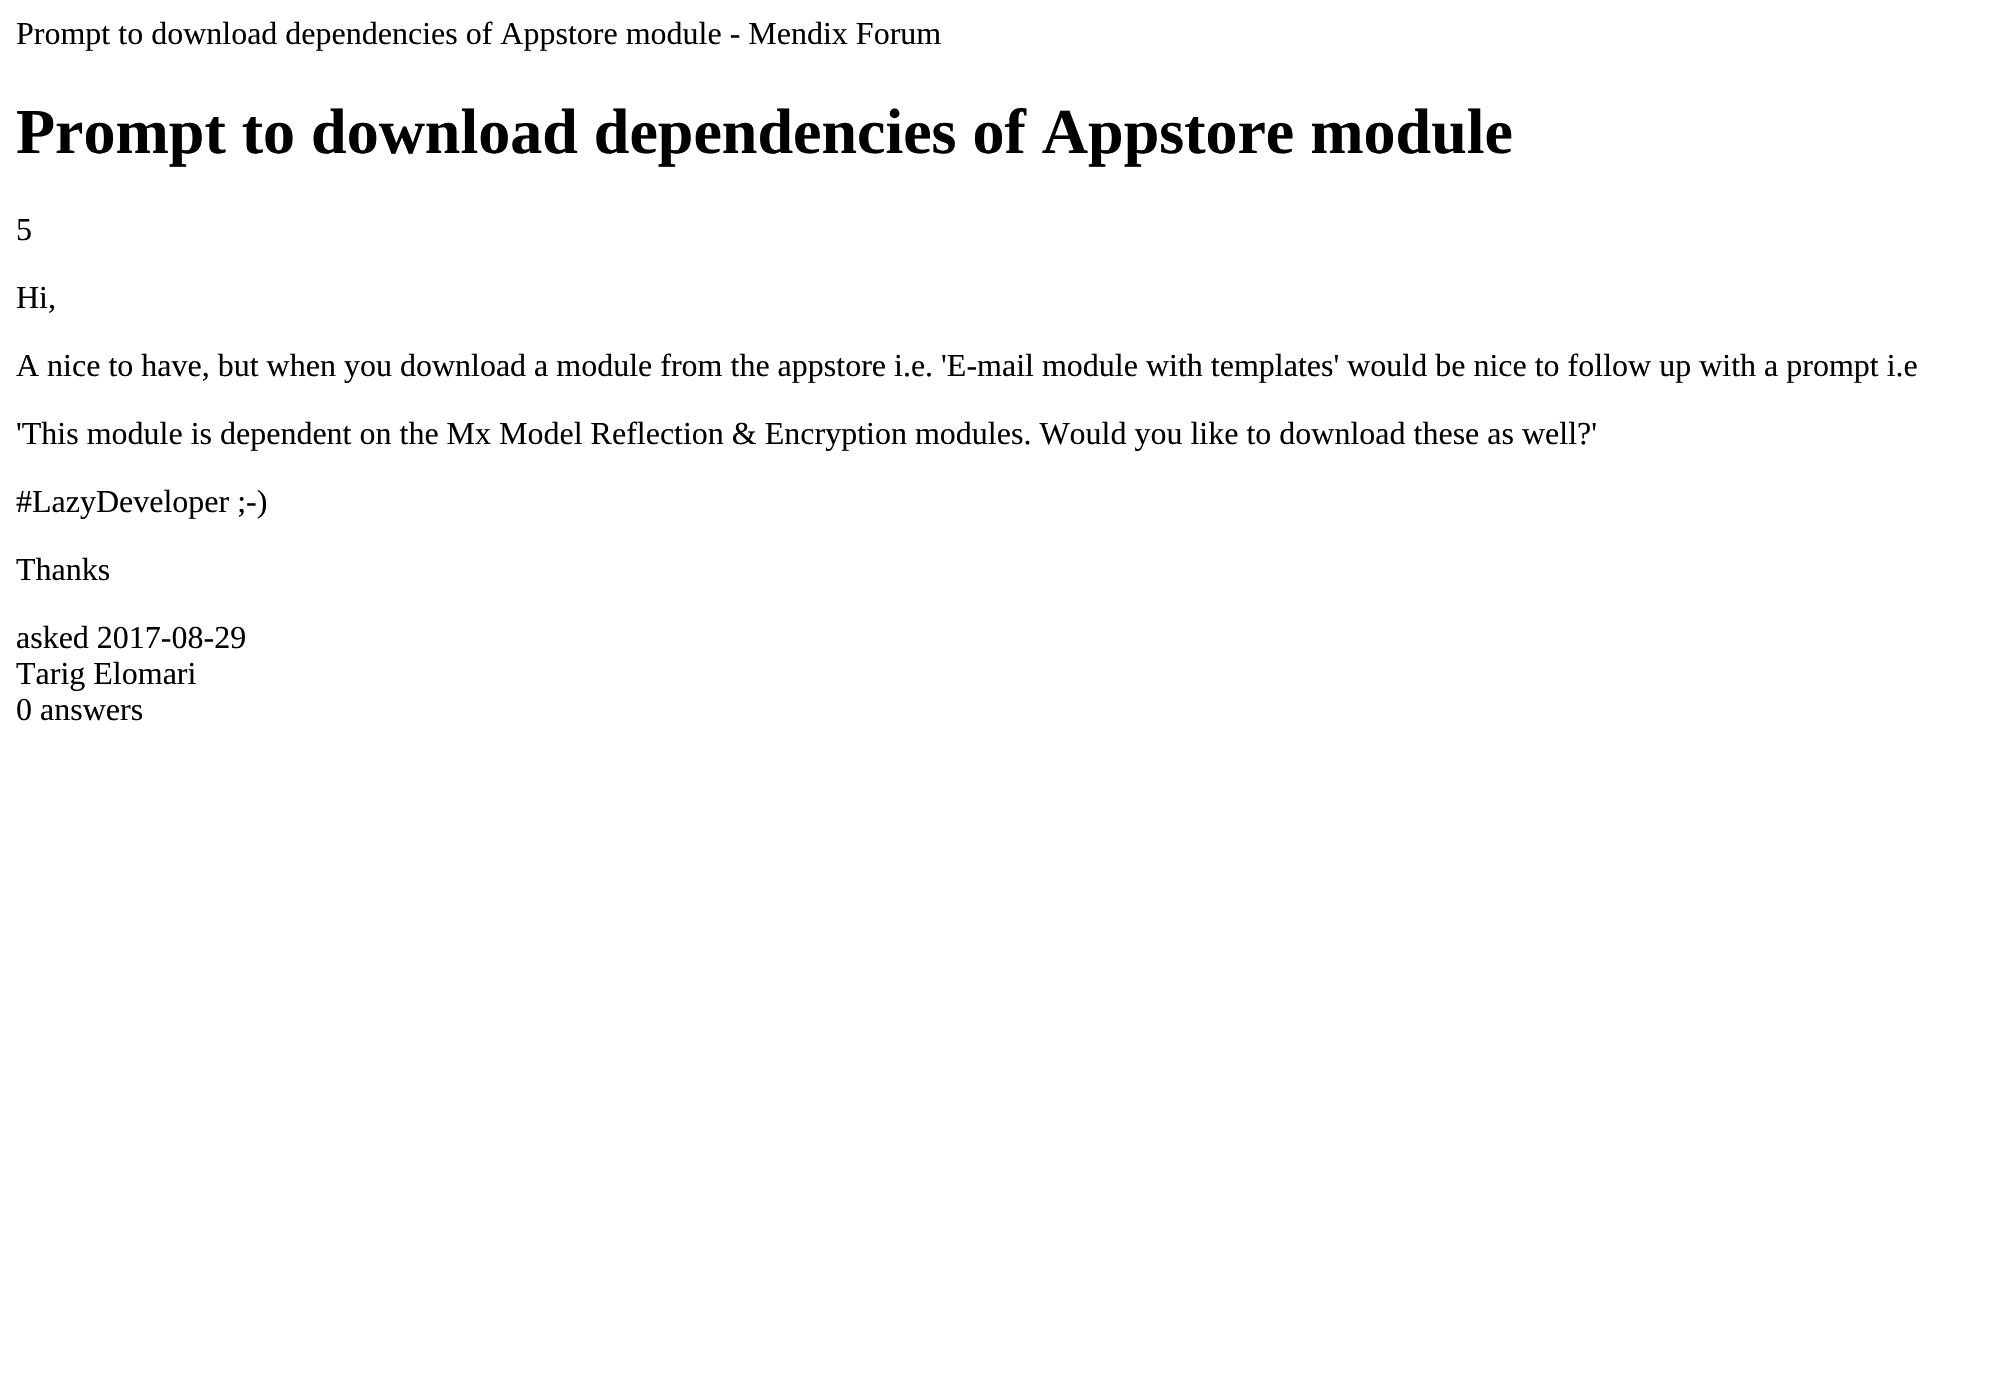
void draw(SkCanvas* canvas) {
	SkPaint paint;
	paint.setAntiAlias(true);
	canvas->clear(0xffffffff);
	SkFont f1(fontMgr->matchFamilyStyle("Liberation Serif", SkFontStyle::Normal()), 32);
	f1.setSubpixel(true);
	paint.setColor(0xff000000);
	canvas->drawString("Prompt to download dependencies of Appstore module - Mendix Forum", 16, 44, f1, paint);
	SkFont f2(fontMgr->matchFamilyStyle("Liberation Serif", SkFontStyle::Bold()), 64);
	f2.setSubpixel(true);
	canvas->drawString("Prompt to download dependencies of Appstore module", 16, 153, f2, paint);
	canvas->drawString("5", 16, 240, f1, paint);
	canvas->drawString("Hi,", 16, 308, f1, paint);
	canvas->drawString("A nice to have, but when you download a module from the appstore i.e. 'E-mail module with templates' would be nice to follow up with a prompt i.e", 16, 376, f1, paint);
	canvas->drawString("'This module is dependent on the Mx Model Reflection & Encryption modules. Would you like to download these as well?'", 16, 444, f1, paint);
	canvas->drawString("#LazyDeveloper ;-)", 16, 512, f1, paint);
	canvas->drawString("Thanks", 16, 580, f1, paint);
	canvas->drawString("asked 2017-08-29", 16, 648, f1, paint);
	canvas->drawString("Tarig Elomari", 16, 684, f1, paint);
	canvas->drawString("0 answers", 16, 720, f1, paint);
}
